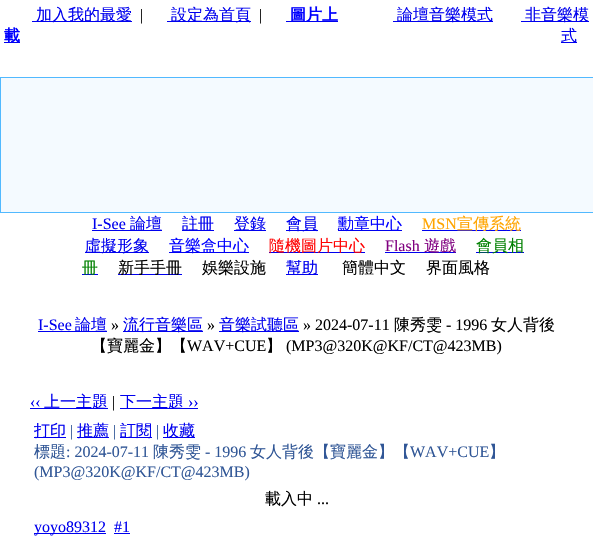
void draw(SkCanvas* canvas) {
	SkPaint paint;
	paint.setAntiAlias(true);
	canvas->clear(0xffffffff);
	paint.setColor(0xff0000ee);
	canvas->drawRect(SkRect::MakeXYWH(32, 21, 100, 1), paint);
	SkFont f1(fontMgr->matchFamilyStyle("WenQuanYi Zen Hei", SkFontStyle(500, SkFontStyle::kNormal_Width, SkFontStyle::kUpright_Slant)), 16);
	f1.setSubpixel(true);
	canvas->drawString("加入我的最愛", 36, 20, f1, paint);
	SkFont f2(fontMgr->matchFamilyStyle("Liberation Serif", SkFontStyle::Normal()), 16);
	f2.setSubpixel(true);
	paint.setColor(0xff000000);
	canvas->drawString("|", 140, 20, f2, paint);
	paint.setColor(0xff0000ee);
	canvas->drawRect(SkRect::MakeXYWH(167, 21, 84, 1), paint);
	canvas->drawString("設定為首頁", 171, 20, f1, paint);
	paint.setColor(0xff000000);
	canvas->drawString("|", 259, 20, f2, paint);
	paint.setColor(0xff0000ee);
	canvas->drawRect(SkRect::MakeXYWH(286, 21, 52, 1), paint);
	SkFont f3(fontMgr->matchFamilyStyle("WenQuanYi Zen Hei", SkFontStyle::Bold()), 16);
	f3.setSubpixel(true);
	paint.setColor(0xff0000ff);
	canvas->drawString("圖片上", 290, 20, f3, paint);
	paint.setColor(0xff0000ee);
	canvas->drawRect(SkRect::MakeXYWH(4, 42, 16, 1), paint);
	paint.setColor(0xff0000ff);
	canvas->drawString("載", 4, 41, f3, paint);
	paint.setColor(0xff0000ee);
	canvas->drawRect(SkRect::MakeXYWH(393, 21, 100, 1), paint);
	canvas->drawString("論壇音樂模式", 397, 20, f1, paint);
	canvas->drawRect(SkRect::MakeXYWH(521, 21, 68, 1), paint);
	canvas->drawString("非音樂模", 525, 20, f1, paint);
	canvas->drawRect(SkRect::MakeXYWH(561, 42, 16, 1), paint);
	canvas->drawString("式", 561, 41, f1, paint);
	paint.setColor(0xff51b9ff);
	canvas->drawRect(SkRect::MakeXYWH(0, 77, 593, 136), paint);
	paint.setColor(0xfff4faff);
	canvas->drawRect(SkRect::MakeXYWH(1, 78, 592, 134), paint);
	paint.setColor(0xff0000ee);
	canvas->drawString("I-See", 92, 229, f2, paint);
	canvas->drawRect(SkRect::MakeXYWH(92, 230, 70, 1), paint);
	canvas->drawString("論壇", 130, 229, f1, paint);
	canvas->drawRect(SkRect::MakeXYWH(182, 230, 32, 1), paint);
	canvas->drawString("註冊", 182, 229, f1, paint);
	canvas->drawRect(SkRect::MakeXYWH(234, 230, 32, 1), paint);
	canvas->drawString("登錄", 234, 229, f1, paint);
	canvas->drawRect(SkRect::MakeXYWH(286, 230, 32, 1), paint);
	canvas->drawString("會員", 286, 229, f1, paint);
	canvas->drawRect(SkRect::MakeXYWH(338, 230, 64, 1), paint);
	paint.setColor(0xff0000ff);
	canvas->drawString("勳章中心", 338, 229, f1, paint);
	paint.setColor(0xffffa500);
	canvas->drawString("MSN", 422, 229, f2, paint);
	paint.setColor(0xff0000ee);
	canvas->drawRect(SkRect::MakeXYWH(422, 230, 99, 1), paint);
	paint.setColor(0xffffa500);
	canvas->drawString("宣傳系統", 457, 229, f1, paint);
	paint.setColor(0xff0000ee);
	canvas->drawRect(SkRect::MakeXYWH(85, 252, 64, 1), paint);
	canvas->drawString("虛擬形象", 85, 251, f1, paint);
	canvas->drawRect(SkRect::MakeXYWH(169, 252, 80, 1), paint);
	paint.setColor(0xff0000ff);
	canvas->drawString("音樂盒中心", 169, 251, f1, paint);
	paint.setColor(0xff0000ee);
	canvas->drawRect(SkRect::MakeXYWH(269, 252, 96, 1), paint);
	paint.setColor(0xffff0000);
	canvas->drawString("隨機圖片中心", 269, 251, f1, paint);
	paint.setColor(0xff800080);
	canvas->drawString("Flash", 385, 251, f2, paint);
	paint.setColor(0xff0000ee);
	canvas->drawRect(SkRect::MakeXYWH(385, 252, 71, 1), paint);
	paint.setColor(0xff800080);
	canvas->drawString("遊戲", 424, 251, f1, paint);
	paint.setColor(0xff0000ee);
	canvas->drawRect(SkRect::MakeXYWH(476, 252, 48, 1), paint);
	paint.setColor(0xff008000);
	canvas->drawString("會員相", 476, 251, f1, paint);
	paint.setColor(0xff0000ee);
	canvas->drawRect(SkRect::MakeXYWH(82, 274, 16, 1), paint);
	paint.setColor(0xff008000);
	canvas->drawString("冊", 82, 273, f1, paint);
	paint.setColor(0xff0000ee);
	canvas->drawRect(SkRect::MakeXYWH(118, 274, 64, 1), paint);
	paint.setColor(0xff000000);
	canvas->drawString("新手手冊", 118, 273, f1, paint);
	canvas->drawString("娛樂設施", 202, 273, f1, paint);
	paint.setColor(0xff0000ee);
	canvas->drawRect(SkRect::MakeXYWH(286, 274, 32, 1), paint);
	canvas->drawString("幫助", 286, 273, f1, paint);
	paint.setColor(0xff000000);
	canvas->drawString("簡體中文", 342, 273, f1, paint);
	canvas->drawString("界面風格", 426, 273, f1, paint);
	paint.setColor(0xff0000ee);
	canvas->drawString("I-See", 38, 330, f2, paint);
	canvas->drawRect(SkRect::MakeXYWH(38, 331, 69, 1), paint);
	canvas->drawString("論壇", 75, 330, f1, paint);
	paint.setColor(0xff000000);
	canvas->drawString("»", 111, 330, f2, paint);
	paint.setColor(0xff0000ee);
	canvas->drawRect(SkRect::MakeXYWH(123, 331, 80, 1), paint);
	canvas->drawString("流行音樂區", 123, 330, f1, paint);
	paint.setColor(0xff000000);
	canvas->drawString("»", 207, 330, f2, paint);
	paint.setColor(0xff0000ee);
	canvas->drawRect(SkRect::MakeXYWH(219, 331, 80, 1), paint);
	canvas->drawString("音樂試聽區", 219, 330, f1, paint);
	paint.setColor(0xff000000);
	canvas->drawString("» 2024-07-11", 303, 330, f2, paint);
	canvas->drawString("陳秀雯", 394, 330, f1, paint);
	canvas->drawString("- 1996", 446, 330, f2, paint);
	canvas->drawString("女人背後", 491, 330, f1, paint);
	canvas->drawString("【寶麗金】【", 91, 351, f1, paint);
	canvas->drawString("WAV+CUE", 187, 351, f2, paint);
	canvas->drawString("】", 266, 351, f1, paint);
	canvas->drawString("(MP3@320K@KF/CT@423MB)", 286, 351, f2, paint);
	paint.setColor(0xff0000ee);
	canvas->drawString("‹‹", 30, 407, f2, paint);
	canvas->drawRect(SkRect::MakeXYWH(30, 408, 78, 1), paint);
	canvas->drawString("上一主題", 44, 407, f1, paint);
	paint.setColor(0xff000000);
	canvas->drawString("|", 112, 407, f2, paint);
	paint.setColor(0xff0000ee);
	canvas->drawRect(SkRect::MakeXYWH(120, 408, 78, 1), paint);
	canvas->drawString("下一主題", 120, 407, f1, paint);
	canvas->drawString("››", 188, 407, f2, paint);
	canvas->drawRect(SkRect::MakeXYWH(34, 437, 32, 1), paint);
	canvas->drawString("打印", 34, 436, f1, paint);
	paint.setColor(0xff305696);
	canvas->drawString("|", 70, 436, f2, paint);
	paint.setColor(0xff0000ee);
	canvas->drawRect(SkRect::MakeXYWH(77, 437, 32, 1), paint);
	canvas->drawString("推薦", 77, 436, f1, paint);
	paint.setColor(0xff305696);
	canvas->drawString("|", 113, 436, f2, paint);
	paint.setColor(0xff0000ee);
	canvas->drawRect(SkRect::MakeXYWH(120, 437, 32, 1), paint);
	canvas->drawString("訂閱", 120, 436, f1, paint);
	paint.setColor(0xff305696);
	canvas->drawString("|", 156, 436, f2, paint);
	paint.setColor(0xff0000ee);
	canvas->drawRect(SkRect::MakeXYWH(163, 437, 32, 1), paint);
	canvas->drawString("收藏", 163, 436, f1, paint);
	paint.setColor(0xff305696);
	canvas->drawString("標題", 34, 457, f1, paint);
	canvas->drawString(": 2024-07-11", 66, 457, f2, paint);
	canvas->drawString("陳秀雯", 153, 457, f1, paint);
	canvas->drawString("- 1996", 205, 457, f2, paint);
	canvas->drawString("女人背後【寶麗金】【", 250, 457, f1, paint);
	canvas->drawString("WAV+CUE", 410, 457, f2, paint);
	canvas->drawString("】", 489, 457, f1, paint);
	canvas->drawString("(MP3@320K@KF/CT@423MB)", 34, 477, f2, paint);
	paint.setColor(0xff000000);
	canvas->drawString("載入中", 265, 504, f1, paint);
	canvas->drawString("...", 317, 504, f2, paint);
	paint.setColor(0xff0000ee);
	canvas->drawRect(SkRect::MakeXYWH(34, 533, 72, 1), paint);
	canvas->drawString("yoyo89312", 34, 532, f2, paint);
	canvas->drawString("#1", 114, 532, f2, paint);
	canvas->drawRect(SkRect::MakeXYWH(114, 533, 16, 1), paint);
}
